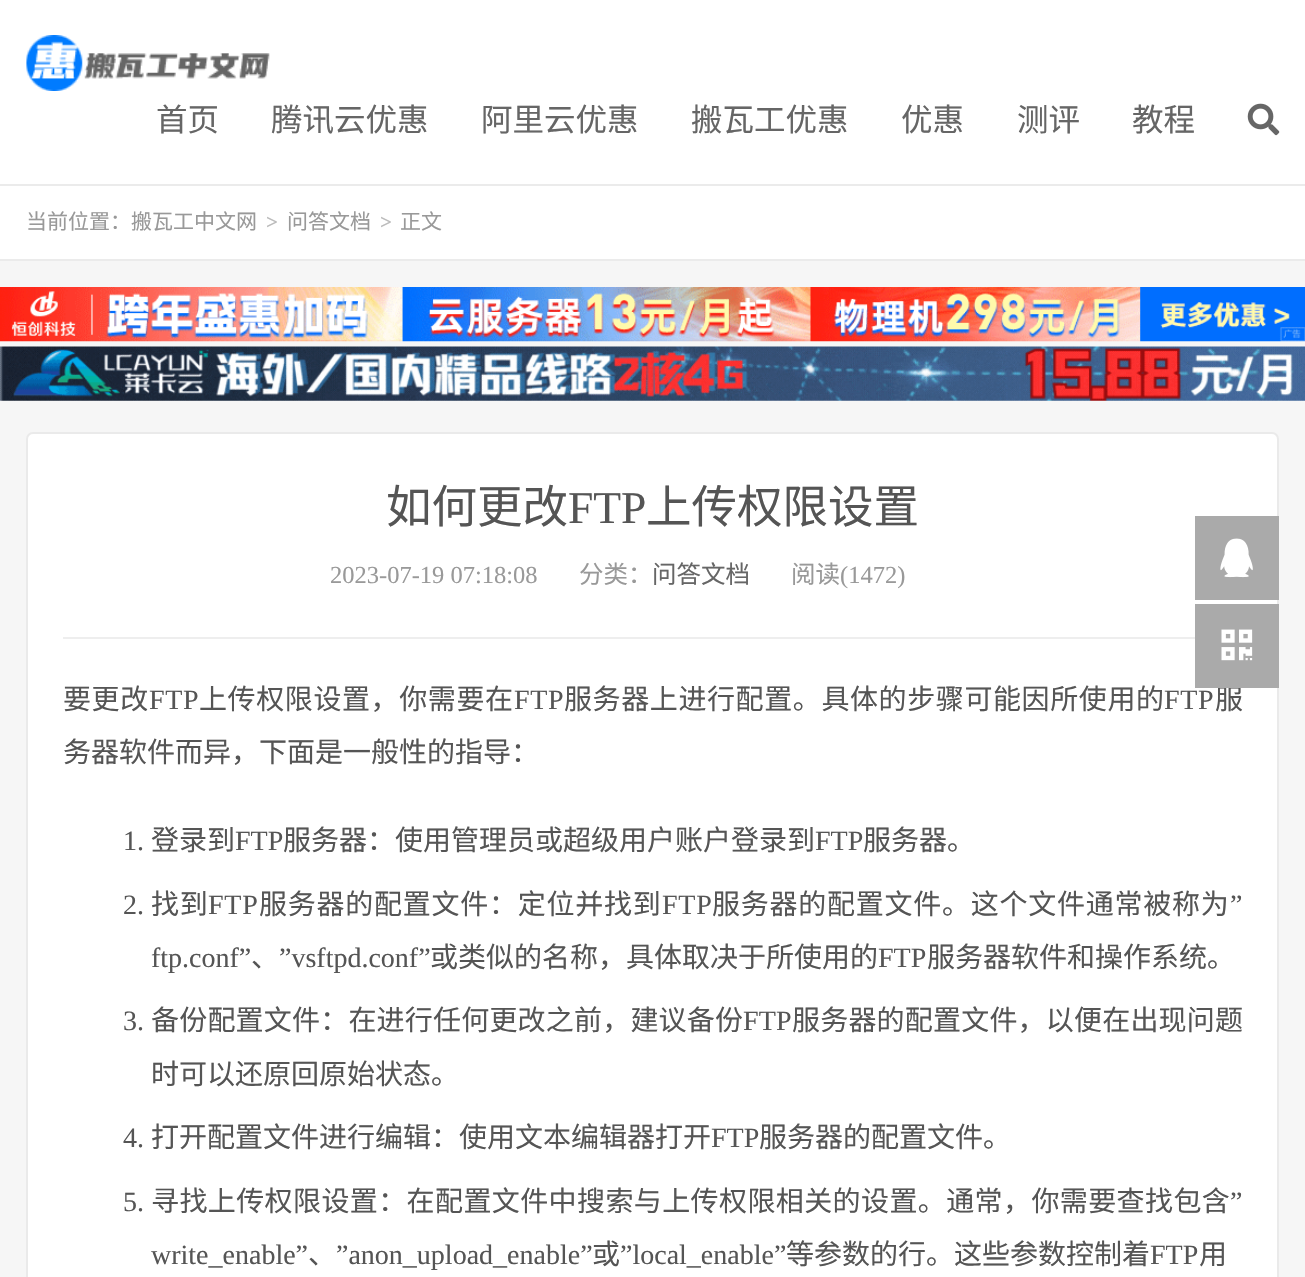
void draw(SkCanvas* canvas) {
	SkPaint paint;
	paint.setAntiAlias(true);
	auto spacedText = [&](const char* s, float x, float y, const SkFont& font, const SkPaint& ink, float letter, float word) {
		std::vector<SkGlyphID> glyphs(font.countText(s, strlen(s), SkTextEncoding::kUTF8));
		std::vector<float> xs(glyphs.size());
		font.textToGlyphs(s, strlen(s), SkTextEncoding::kUTF8, glyphs);
		font.getXPos(glyphs, xs, x);
		float extra = 0;
		for (size_t i = 0; i < glyphs.size(); i++) {
			xs[i] += extra;
			extra += letter + word * (glyphs[i] == font.unicharToGlyph(' '));
		}
		canvas->drawTextBlob(SkTextBlob::MakeFromPosHGlyphs(glyphs, xs, y, font), 0, 0, ink);
	};
	canvas->clear(0xfff6f6f6);
	paint.setColor(0xffffffff);
	canvas->drawRect(SkRect::MakeXYWH(0, 0, 1305, 184), paint);
	paint.setColor(0xffebebeb);
	canvas->drawRect(SkRect::MakeXYWH(0, 184, 1305, 2), paint);
	canvas->drawImageRect(SkImages::DeferredFromEncodedData(SkData::MakeFromFileName("img1.png")), SkRect::MakeXYWH(26, 35, 244, 56), SkSamplingOptions());
	SkFont f1(fontMgr->matchFamilyStyle("Noto Sans CJK SC", SkFontStyle::Normal()), 31.5);
	f1.setSubpixel(true);
	paint.setColor(0xff666666);
	canvas->drawString("首页", 156, 131, f1, paint);
	canvas->drawString("腾讯云优惠", 271, 131, f1, paint);
	canvas->drawString("阿里云优惠", 481, 131, f1, paint);
	canvas->drawString("搬瓦工优惠", 691, 131, f1, paint);
	canvas->drawString("优惠", 901, 131, f1, paint);
	canvas->drawString("测评", 1017, 131, f1, paint);
	canvas->drawString("教程", 1132, 131, f1, paint);
	canvas->drawImageRect(SkImages::DeferredFromEncodedData(SkData::MakeFromFileName("img2.png")), SkRect::MakeXYWH(1247, 103, 33, 33), SkSamplingOptions());
	paint.setColor(0xffffffff);
	canvas->drawRect(SkRect::MakeXYWH(0, 186, 1305, 73), paint);
	paint.setColor(0xffebebeb);
	canvas->drawRect(SkRect::MakeXYWH(0, 259, 1305, 2), paint);
	SkFont f2(fontMgr->matchFamilyStyle("Noto Sans CJK SC", SkFontStyle::Normal()), 21);
	f2.setSubpixel(true);
	paint.setColor(0xff999999);
	canvas->drawString("当前位置：搬瓦工中文网", 26, 229, f2, paint);
	SkFont f3(fontMgr->matchFamilyStyle("Liberation Serif", SkFontStyle::Bold()), 21);
	f3.setSubpixel(true);
	paint.setColor(0xffbbbbbb);
	canvas->drawString(">", 266, 229, f3, paint);
	paint.setColor(0xff999999);
	canvas->drawString("问答文档", 287, 229, f2, paint);
	paint.setColor(0xffbbbbbb);
	canvas->drawString(">", 380, 229, f3, paint);
	paint.setColor(0xff999999);
	canvas->drawString("正文", 400, 229, f2, paint);
	canvas->drawImageRect(SkImages::DeferredFromEncodedData(SkData::MakeFromFileName("img3.png")), SkRect::MakeXYWH(0, 287, 1305, 55), SkSamplingOptions());
	canvas->drawImageRect(SkImages::DeferredFromEncodedData(SkData::MakeFromFileName("img4.png")), SkRect::MakeXYWH(0, 346, 1305, 55), SkSamplingOptions());
	paint.setColor(0xffffffff);
	canvas->drawRoundRect(SkRect::MakeXYWH(27, 433, 1251, 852), 6, 6, paint);
	paint.setStroke(true);
	paint.setStrokeWidth(2);
	paint.setColor(0xffeaeaea);
	canvas->drawRoundRect(SkRect::MakeXYWH(27, 433, 1251, 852), 6, 6, paint);
	paint.setStroke(false);
	paint.setColor(0xffeeeeee);
	canvas->drawRect(SkRect::MakeXYWH(63, 637, 1132, 2), paint);
	SkFont f4(fontMgr->matchFamilyStyle("Noto Sans CJK SC", SkFontStyle::Normal()), 45.5);
	f4.setSubpixel(true);
	paint.setColor(0xff555555);
	canvas->drawString("如何更改", 386, 523, f4, paint);
	SkFont f5(fontMgr->matchFamilyStyle("Liberation Serif", SkFontStyle::Normal()), 45.5);
	f5.setSubpixel(true);
	canvas->drawString("FTP", 568, 523, f5, paint);
	canvas->drawString("上传权限设置", 646, 523, f4, paint);
	SkFont f6(fontMgr->matchFamilyStyle("Liberation Serif", SkFontStyle::Normal()), 24.5);
	f6.setSubpixel(true);
	paint.setColor(0xff999999);
	canvas->drawString("2023-07-19 07:18:08", 330, 583, f6, paint);
	SkFont f7(fontMgr->matchFamilyStyle("Noto Sans CJK SC", SkFontStyle::Normal()), 24.5);
	f7.setSubpixel(true);
	canvas->drawString("分类：", 579, 583, f7, paint);
	paint.setColor(0xff666666);
	canvas->drawString("问答文档", 652, 583, f7, paint);
	paint.setColor(0xff999999);
	canvas->drawString("阅读", 791, 583, f7, paint);
	canvas->drawString("(1472)", 840, 583, f6, paint);
	SkFont f8(fontMgr->matchFamilyStyle("Noto Sans CJK SC", SkFontStyle::Normal()), 28);
	f8.setSubpixel(true);
	paint.setColor(0xff555555);
	spacedText("要更改", 63, 709, f8, paint, 0.6, 0);
	SkFont f9(fontMgr->matchFamilyStyle("Liberation Serif", SkFontStyle::Normal()), 28);
	f9.setSubpixel(true);
	spacedText("FTP", 149, 709, f9, paint, 0.6, 0);
	spacedText("上传权限设置，你需要在", 199, 709, f8, paint, 0.6, 0);
	spacedText("FTP", 514, 709, f9, paint, 0.6, 0);
	spacedText("服务器上进行配置。具体的步骤可能因所使用的", 564, 709, f8, paint, 0.6, 0);
	spacedText("FTP", 1164, 709, f9, paint, 0.6, 0);
	spacedText("服", 1215, 709, f8, paint, 0.6, 0);
	canvas->drawString("务器软件而异，下面是一般性的指导：", 63, 762, f8, paint);
	canvas->drawString("1.", 123, 850, f9, paint);
	canvas->drawString("登录到", 151, 850, f8, paint);
	canvas->drawString("FTP", 235, 850, f9, paint);
	canvas->drawString("服务器：使用管理员或超级用户账户登录到", 283, 850, f8, paint);
	canvas->drawString("FTP", 815, 850, f9, paint);
	canvas->drawString("服务器。", 863, 850, f8, paint);
	canvas->drawString("2.", 123, 914, f9, paint);
	spacedText("找到", 151, 914, f8, paint, 0.75, 0);
	spacedText("FTP", 208, 914, f9, paint, 0.75, 0);
	spacedText("服务器的配置文件：定位并找到", 259, 914, f8, paint, 0.75, 0);
	spacedText("FTP", 662, 914, f9, paint, 0.75, 0);
	spacedText("服务器的配置文件。这个文件通常被称为", 712, 914, f8, paint, 0.75, 0);
	spacedText("”", 1230, 914, f9, paint, 0.75, 0);
	canvas->drawString("ftp.conf”", 151, 967, f9, paint);
	canvas->drawString("、", 251, 967, f8, paint);
	canvas->drawString("”vsftpd.conf”", 279, 967, f9, paint);
	canvas->drawString("或类似的名称，具体取决于所使用的", 430, 967, f8, paint);
	canvas->drawString("FTP", 878, 967, f9, paint);
	canvas->drawString("服务器软件和操作系统。", 927, 967, f8, paint);
	canvas->drawString("3.", 123, 1030, f9, paint);
	spacedText("备份配置文件：在进行任何更改之前，建议备份", 151, 1030, f8, paint, 0.2, 0);
	spacedText("FTP", 743, 1030, f9, paint, 0.2, 0);
	spacedText("服务器的配置文件，以便在出现问题", 792, 1030, f8, paint, 0.2, 0);
	canvas->drawString("时可以还原回原始状态。", 151, 1084, f8, paint);
	canvas->drawString("4.", 123, 1147, f9, paint);
	canvas->drawString("打开配置文件进行编辑：使用文本编辑器打开", 151, 1147, f8, paint);
	canvas->drawString("FTP", 711, 1147, f9, paint);
	canvas->drawString("服务器的配置文件。", 759, 1147, f8, paint);
	canvas->drawString("5.", 123, 1211, f9, paint);
	spacedText("寻找上传权限设置：在配置文件中搜索与上传权限相关的设置。通常，你需要查找包含", 151, 1211, f8, paint, 0.4, 0);
	spacedText("”", 1230, 1211, f9, paint, 0.4, 0);
	canvas->drawString("write_enable”", 151, 1264, f9, paint);
	canvas->drawString("、", 308, 1264, f8, paint);
	canvas->drawString("”anon_upload_enable”", 336, 1264, f9, paint);
	canvas->drawString("或", 592, 1264, f8, paint);
	canvas->drawString("”local_enable”", 620, 1264, f9, paint);
	canvas->drawString("等参数的行。这些参数控制着", 786, 1264, f8, paint);
	canvas->drawString("FTP", 1150, 1264, f9, paint);
	canvas->drawString("用", 1199, 1264, f8, paint);
	paint.setColor(0xffaaaaaa);
	canvas->drawRect(SkRect::MakeXYWH(1195, 516, 84, 84), paint);
	canvas->drawImageRect(SkImages::DeferredFromEncodedData(SkData::MakeFromFileName("img5.png")), SkRect::MakeXYWH(1220, 538, 33, 40), SkSamplingOptions());
	canvas->drawRect(SkRect::MakeXYWH(1195, 604, 84, 84), paint);
	canvas->drawImageRect(SkImages::DeferredFromEncodedData(SkData::MakeFromFileName("img6.png")), SkRect::MakeXYWH(1221, 629, 32, 32), SkSamplingOptions());
}
